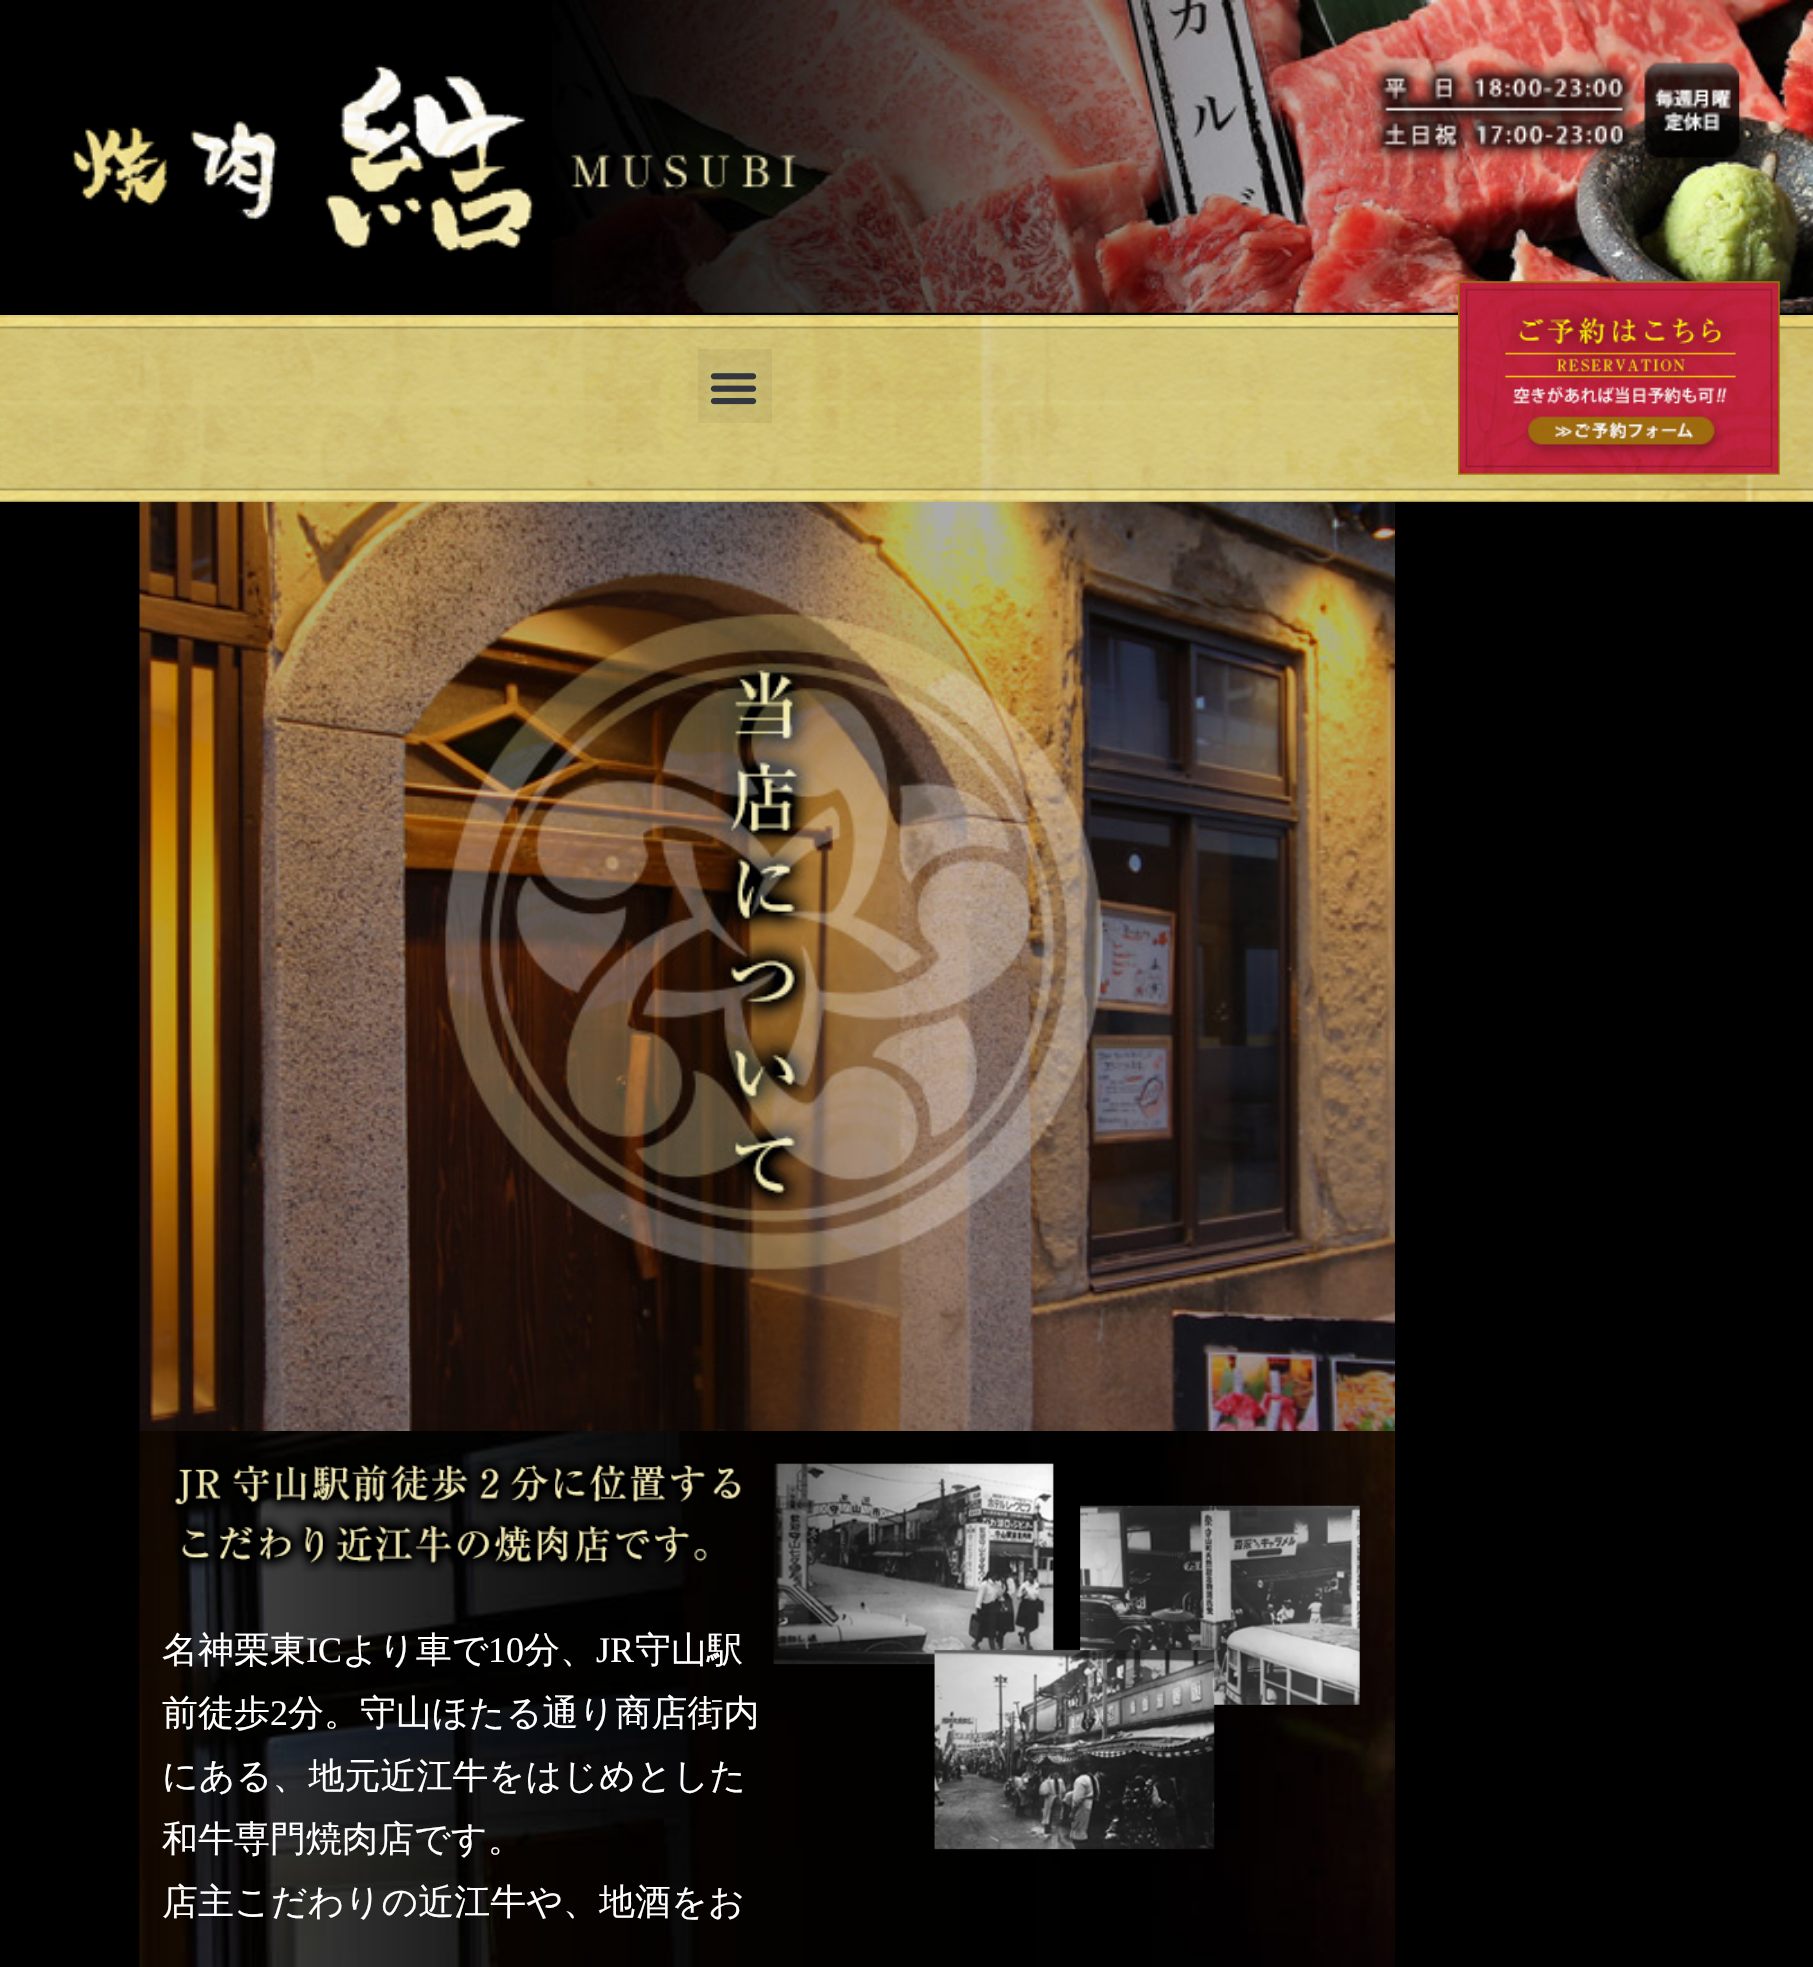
void draw(SkCanvas* canvas) {
	SkPaint paint;
	paint.setAntiAlias(true);
	canvas->clear(0xff000000);
	canvas->drawImageRect(SkImages::DeferredFromEncodedData(SkData::MakeFromFileName("img1.png")), SkRect::MakeXYWH(552, 0, 1261, 313), SkSamplingOptions());
	canvas->drawImageRect(SkImages::DeferredFromEncodedData(SkData::MakeFromFileName("img2.png")), SkRect::MakeXYWH(72, 64, 725, 189), SkSamplingOptions());
	canvas->drawImageRect(SkImages::DeferredFromEncodedData(SkData::MakeFromFileName("img3.png")), SkRect::MakeXYWH(1370, 62, 370, 100), SkSamplingOptions());
	canvas->drawImageRect(SkImages::DeferredFromEncodedData(SkData::MakeFromFileName("img7.png")), SkRect::MakeXYWH(139, 501, 1256, 930), SkSamplingOptions());
	canvas->drawImageRect(SkImages::DeferredFromEncodedData(SkData::MakeFromFileName("img4.png")), SkRect::MakeXYWH(0, 315, 1813, 187), SkSamplingOptions());
	paint.setColor(0x0d000000);
	canvas->drawRect(SkRect::MakeXYWH(698, 349, 74, 74), paint);
	canvas->drawImageRect(SkImages::DeferredFromEncodedData(SkData::MakeFromFileName("img5.png")), SkRect::MakeXYWH(710, 373, 47, 32), SkSamplingOptions());
	canvas->drawImageRect(SkImages::DeferredFromEncodedData(SkData::MakeFromFileName("img6.png")), SkRect::MakeXYWH(1458, 281, 322, 194), SkSamplingOptions());
	canvas->drawImageRect(SkImages::DeferredFromEncodedData(SkData::MakeFromFileName("img8.png")), SkRect::MakeXYWH(139, 1431, 1256, 536), SkSamplingOptions());
	canvas->drawImageRect(SkImages::DeferredFromEncodedData(SkData::MakeFromFileName("img9.png")), SkRect::MakeXYWH(168, 1457, 574, 115), SkSamplingOptions());
	SkFont f1(fontMgr->matchFamilyStyle("WenQuanYi Zen Hei", SkFontStyle(500, SkFontStyle::kNormal_Width, SkFontStyle::kUpright_Slant)), 36);
	f1.setSubpixel(true);
	paint.setColor(0xffffffff);
	canvas->drawString("名神栗東", 162, 1662, f1, paint);
	SkFont f2(fontMgr->matchFamilyStyle("Liberation Serif", SkFontStyle::Normal()), 36);
	f2.setSubpixel(true);
	canvas->drawString("IC", 306, 1662, f2, paint);
	canvas->drawString("より車で", 342, 1662, f1, paint);
	canvas->drawString("10", 488, 1662, f2, paint);
	canvas->drawString("分、", 524, 1662, f1, paint);
	canvas->drawString("JR", 596, 1662, f2, paint);
	canvas->drawString("守山駅", 635, 1662, f1, paint);
	canvas->drawString("前徒歩", 162, 1725, f1, paint);
	canvas->drawString("2", 270, 1725, f2, paint);
	canvas->drawString("分。守山ほたる通り商店街内", 288, 1725, f1, paint);
	canvas->drawString("にある、地元近江牛をはじめとした", 162, 1788, f1, paint);
	canvas->drawString("和牛専門焼肉店です。", 162, 1851, f1, paint);
	canvas->drawString("店主こだわりの近江牛や、地酒をお", 162, 1914, f1, paint);
	canvas->drawImageRect(SkImages::DeferredFromEncodedData(SkData::MakeFromFileName("img10.png")), SkRect::MakeXYWH(773, 1463, 587, 387), SkSamplingOptions());
}
